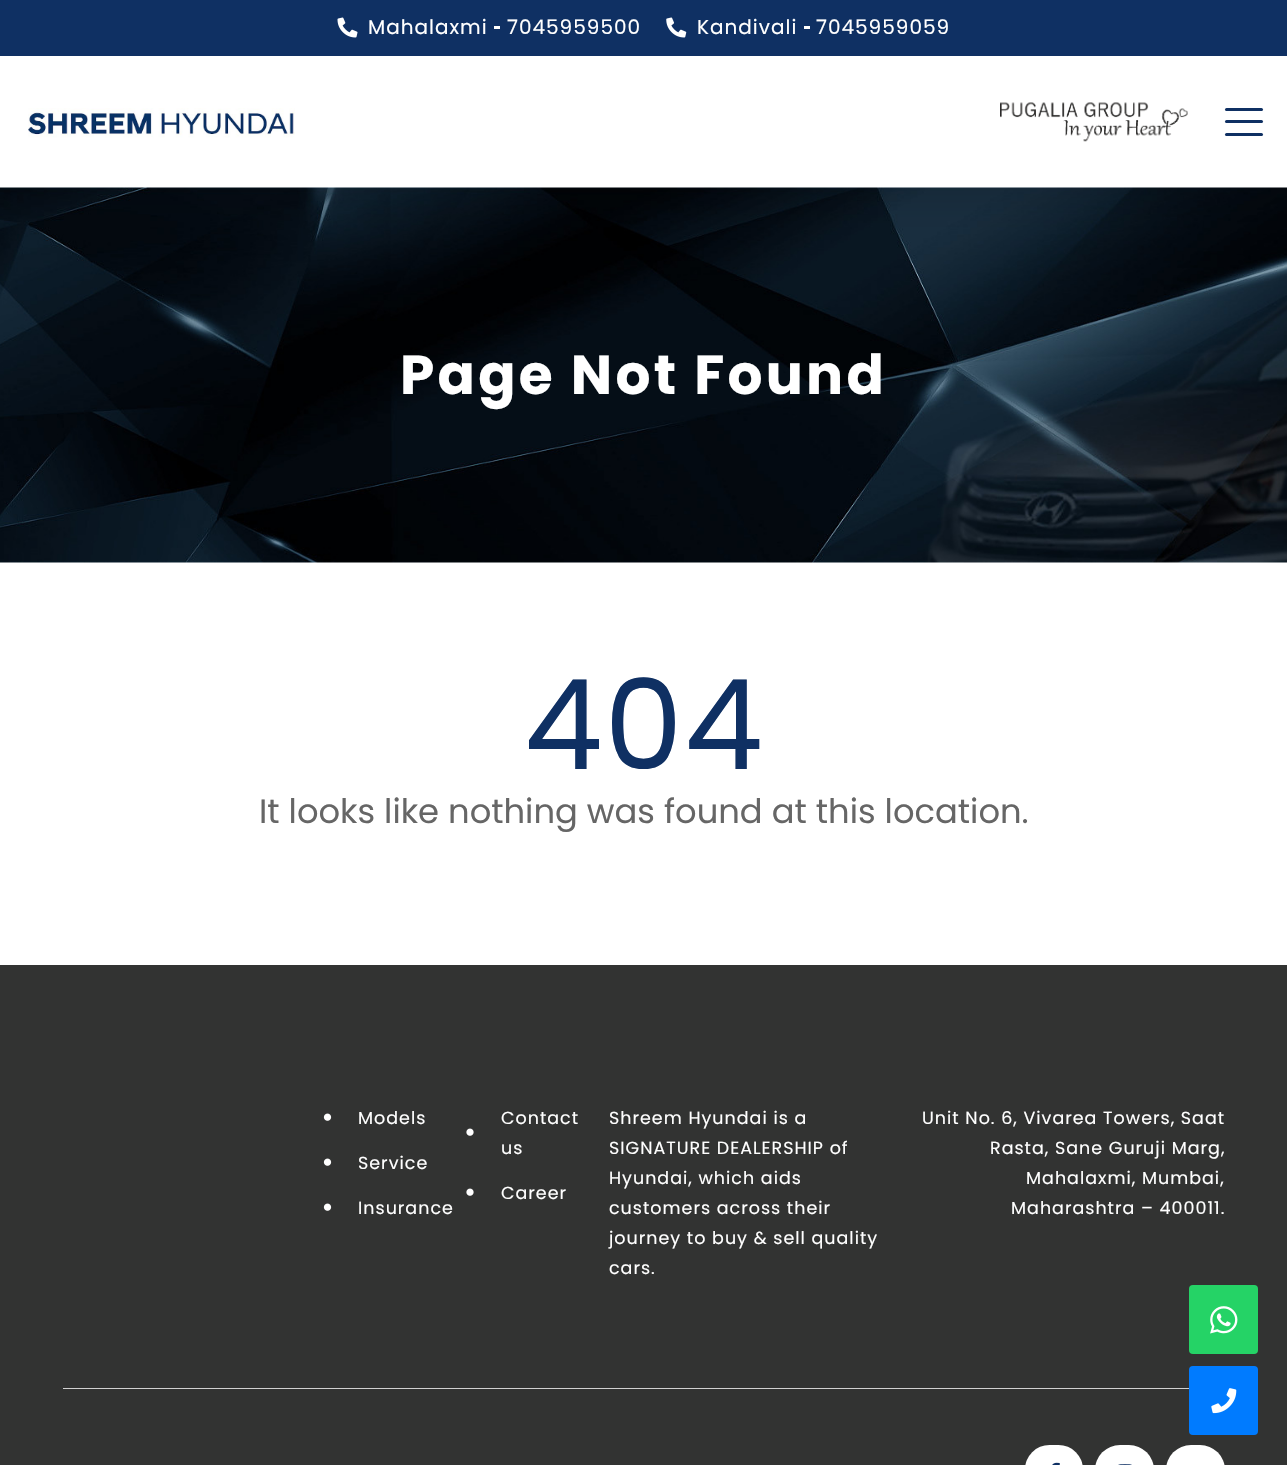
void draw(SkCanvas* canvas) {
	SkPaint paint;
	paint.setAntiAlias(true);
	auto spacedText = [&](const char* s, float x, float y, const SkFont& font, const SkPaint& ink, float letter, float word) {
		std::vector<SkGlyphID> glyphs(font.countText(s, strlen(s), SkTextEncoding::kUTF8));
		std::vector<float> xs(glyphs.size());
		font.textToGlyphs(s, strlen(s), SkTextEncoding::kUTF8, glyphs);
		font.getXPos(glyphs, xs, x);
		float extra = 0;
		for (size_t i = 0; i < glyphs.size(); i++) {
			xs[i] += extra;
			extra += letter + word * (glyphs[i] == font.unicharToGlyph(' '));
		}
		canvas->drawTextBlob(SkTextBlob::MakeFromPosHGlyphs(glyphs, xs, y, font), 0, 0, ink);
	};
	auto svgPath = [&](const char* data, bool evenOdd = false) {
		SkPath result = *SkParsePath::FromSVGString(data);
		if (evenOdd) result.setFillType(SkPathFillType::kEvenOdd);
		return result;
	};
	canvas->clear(0xffffffff);
	canvas->drawImageRect(SkImages::DeferredFromEncodedData(SkData::MakeFromFileName("img5.png")), SkRect::MakeXYWH(0, 187, 1287, 376), SkSamplingOptions());
	canvas->save();
	canvas->clipPath(svgPath("M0 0H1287V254H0ZM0 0H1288V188H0Z", true), true);
	paint.setColor(0x29000000);
	paint.setMaskFilter(SkMaskFilter::MakeBlur(kNormal_SkBlurStyle, 20));
	canvas->drawRect(SkRect::MakeXYWH(0, 5, 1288, 188), paint);
	paint.setMaskFilter(nullptr);
	canvas->restore();
	paint.setColor(0xff0f3063);
	canvas->drawRect(SkRect::MakeXYWH(0, 0, 1287, 56), paint);
	canvas->drawImageRect(SkImages::DeferredFromEncodedData(SkData::MakeFromFileName("img1.png")), SkRect::MakeXYWH(337, 17, 21, 21), SkSamplingOptions());
	SkFont f1(fontMgr->matchFamilyStyle("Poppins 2", SkFontStyle::Normal()), 20);
	f1.setSubpixel(true);
	paint.setColor(0xffffffff);
	spacedText("Mahalaxmi", 368, 34, f1, paint, 1, 0);
	canvas->drawRect(SkRect::MakeXYWH(494, 26, 6, 3), paint);
	spacedText("7045959500", 507, 34, f1, paint, 1, 0);
	canvas->drawImageRect(SkImages::DeferredFromEncodedData(SkData::MakeFromFileName("img2.png")), SkRect::MakeXYWH(666, 17, 21, 21), SkSamplingOptions());
	spacedText("Kandivali", 697, 34, f1, paint, 1, 0);
	canvas->drawRect(SkRect::MakeXYWH(804, 26, 6, 3), paint);
	spacedText("7045959059", 816, 34, f1, paint, 1, 0);
	canvas->drawImageRect(SkImages::DeferredFromEncodedData(SkData::MakeFromFileName("img3.png")), SkRect::MakeXYWH(28, 108, 267, 30), SkSamplingOptions());
	canvas->drawImageRect(SkImages::DeferredFromEncodedData(SkData::MakeFromFileName("img4.png")), SkRect::MakeXYWH(1000, 102, 188, 40), SkSamplingOptions());
	paint.setColor(0xff0f3063);
	canvas->drawRoundRect(SkRect::MakeXYWH(1225, 108, 38, 3), 1.5, 1.5, paint);
	canvas->drawRoundRect(SkRect::MakeXYWH(1225, 120, 38, 3), 1.5, 1.5, paint);
	canvas->drawRoundRect(SkRect::MakeXYWH(1225, 133, 38, 3), 1.5, 1.5, paint);
	SkFont f2(fontMgr->matchFamilyStyle("Poppins", SkFontStyle::Bold()), 55);
	f2.setSubpixel(true);
	paint.setColor(0xffffffff);
	spacedText("Page Not Found", 400, 394, f2, paint, 3.25, 0);
	SkFont f3(fontMgr->matchFamilyStyle("Poppins", SkFontStyle::Normal()), 125);
	f3.setSubpixel(true);
	paint.setColor(0xff0f3063);
	spacedText("404", 524, 769, f3, paint, 1.5, 0);
	SkFont f4(fontMgr->matchFamilyStyle("Poppins", SkFontStyle::Normal()), 33.75);
	f4.setSubpixel(true);
	paint.setColor(0xff666666);
	canvas->drawString("It looks like nothing was found at this location.", 259, 823, f4, paint);
	paint.setColor(0xff323332);
	canvas->drawRect(SkRect::MakeXYWH(0, 965, 1287, 500), paint);
	canvas->drawImageRect(SkImages::DeferredFromEncodedData(SkData::MakeFromFileName("img6.png")), SkRect::MakeXYWH(323, 1113, 9, 8), SkSamplingOptions());
	SkFont f5(fontMgr->matchFamilyStyle("Poppins 2", SkFontStyle::Normal()), 17.5);
	f5.setSubpixel(true);
	paint.setColor(0xffffffff);
	spacedText("Models", 358, 1124, f5, paint, 1, 0);
	canvas->drawImageRect(SkImages::DeferredFromEncodedData(SkData::MakeFromFileName("img6.png")), SkRect::MakeXYWH(323, 1158, 9, 8), SkSamplingOptions());
	spacedText("Service", 358, 1169, f5, paint, 1, 0);
	canvas->drawImageRect(SkImages::DeferredFromEncodedData(SkData::MakeFromFileName("img6.png")), SkRect::MakeXYWH(323, 1203, 9, 8), SkSamplingOptions());
	spacedText("Insurance", 358, 1214, f5, paint, 1, 0);
	canvas->drawImageRect(SkImages::DeferredFromEncodedData(SkData::MakeFromFileName("img7.png")), SkRect::MakeXYWH(466, 1128, 8, 8), SkSamplingOptions());
	spacedText("Contact", 501, 1124, f5, paint, 1, 0);
	spacedText("us", 501, 1154, f5, paint, 1, 0);
	canvas->drawImageRect(SkImages::DeferredFromEncodedData(SkData::MakeFromFileName("img7.png")), SkRect::MakeXYWH(466, 1188, 8, 8), SkSamplingOptions());
	spacedText("Career", 501, 1199, f5, paint, 1, 0);
	spacedText("Shreem Hyundai is a", 609, 1124, f5, paint, 1, 0);
	spacedText("SIGNATURE DEALERSHIP of", 609, 1154, f5, paint, 1, 0);
	spacedText("Hyundai, which aids", 609, 1184, f5, paint, 1, 0);
	spacedText("customers across their", 609, 1214, f5, paint, 1, 0);
	spacedText("journey to buy & sell quality", 609, 1244, f5, paint, 1, 0);
	spacedText("cars.", 609, 1274, f5, paint, 1, 0);
	spacedText("Unit No. 6, Vivarea Towers, Saat", 922, 1124, f5, paint, 1, 0);
	spacedText("Rasta, Sane Guruji Marg,", 990, 1154, f5, paint, 1, 0);
	spacedText("Mahalaxmi, Mumbai,", 1026, 1184, f5, paint, 1, 0);
	spacedText("Maharashtra – 400011.", 1011, 1214, f5, paint, 1, 0);
	paint.setColor(0xffd1d1d1);
	canvas->drawRect(SkRect::MakeXYWH(63, 1388, 1126, 1), paint);
	paint.setColor(0xffffffff);
	canvas->drawRoundRect(SkRect::MakeXYWH(1025, 1445, 58, 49), 29, 29, paint);
	canvas->drawImageRect(SkImages::DeferredFromEncodedData(SkData::MakeFromFileName("img8.png")), SkRect::MakeXYWH(1052, 1462, 8, 3), SkSamplingOptions());
	canvas->drawRoundRect(SkRect::MakeXYWH(1095, 1445, 59, 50), 29.5, 29.5, paint);
	canvas->drawImageRect(SkImages::DeferredFromEncodedData(SkData::MakeFromFileName("img9.png")), SkRect::MakeXYWH(1118, 1464, 14, 1), SkSamplingOptions());
	canvas->drawRoundRect(SkRect::MakeXYWH(1166, 1445, 59, 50), 29.5, 29.5, paint);
	paint.setColor(0xff25d366);
	canvas->drawRoundRect(SkRect::MakeXYWH(1189, 1285, 69, 69), 4, 4, paint);
	canvas->drawImageRect(SkImages::DeferredFromEncodedData(SkData::MakeFromFileName("img10.png")), SkRect::MakeXYWH(1210, 1306, 28, 28), SkSamplingOptions());
	paint.setColor(0xff007bff);
	canvas->drawRoundRect(SkRect::MakeXYWH(1189, 1366, 69, 69), 4, 4, paint);
	canvas->drawImageRect(SkImages::DeferredFromEncodedData(SkData::MakeFromFileName("img11.png")), SkRect::MakeXYWH(1211, 1388, 26, 26), SkSamplingOptions());
}
